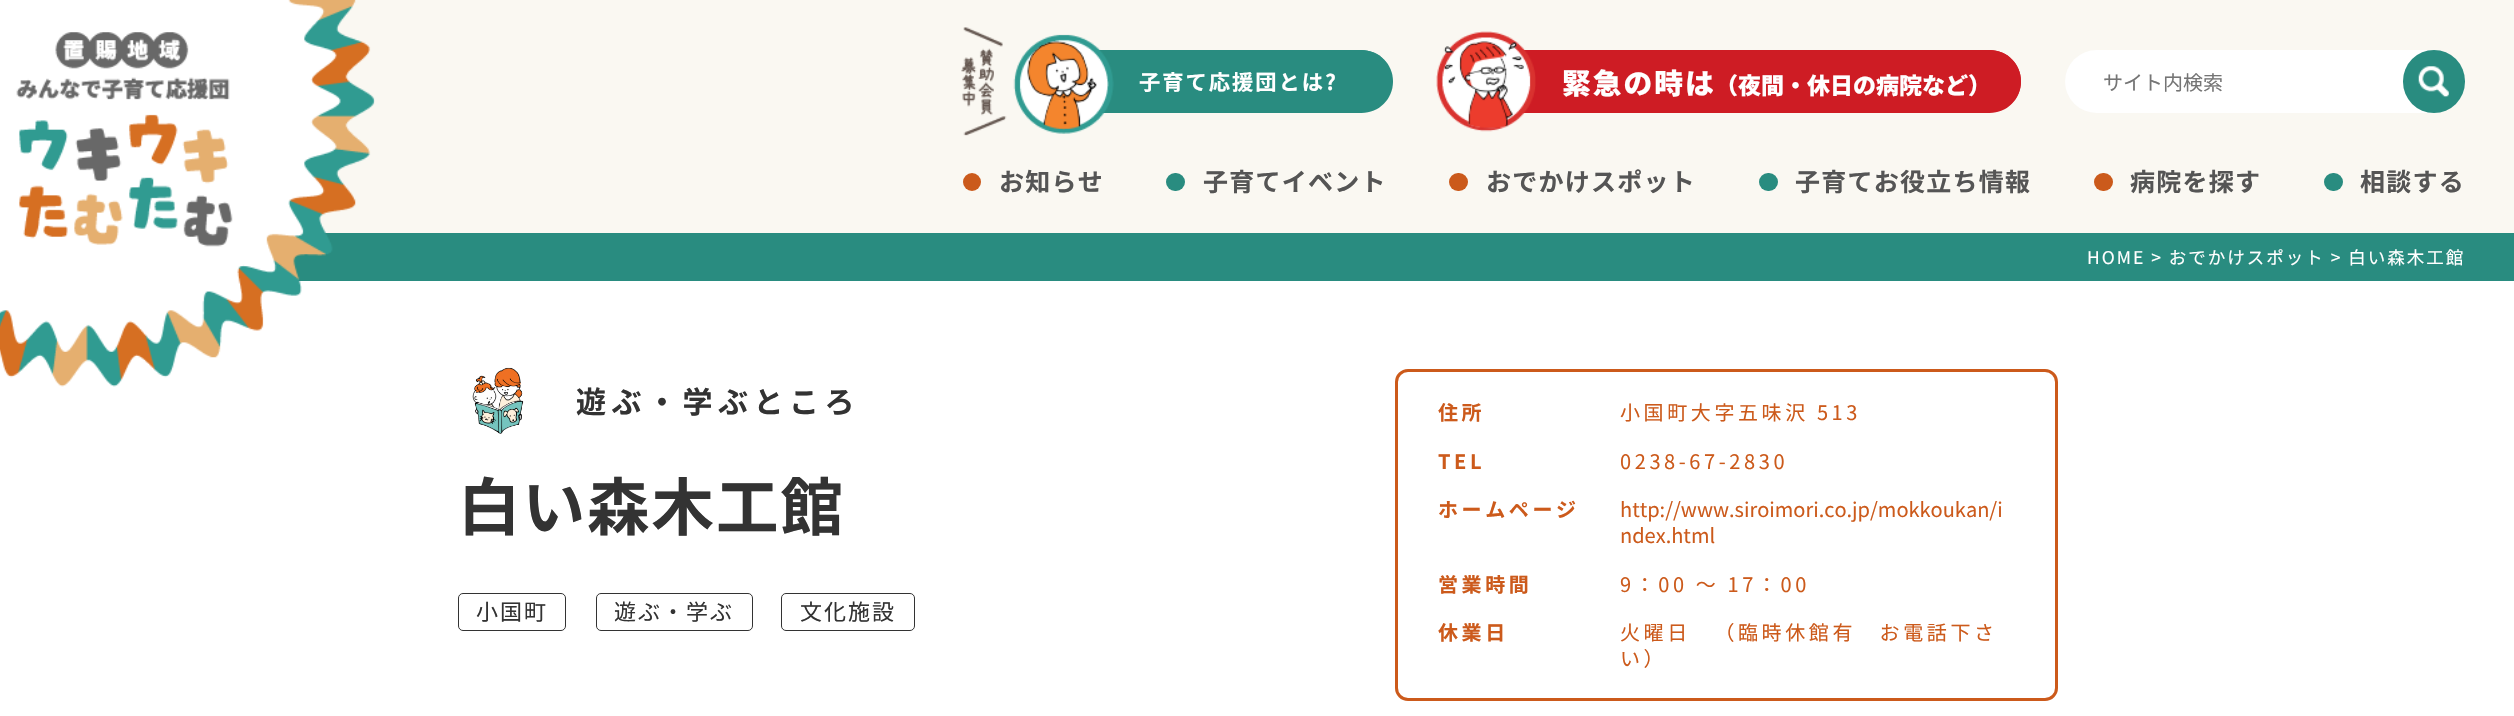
void draw(SkCanvas* canvas) {
	SkPaint paint;
	paint.setAntiAlias(true);
	auto spacedText = [&](const char* s, float x, float y, const SkFont& font, const SkPaint& ink, float letter, float word) {
		std::vector<SkGlyphID> glyphs(font.countText(s, strlen(s), SkTextEncoding::kUTF8));
		std::vector<float> xs(glyphs.size());
		font.textToGlyphs(s, strlen(s), SkTextEncoding::kUTF8, glyphs);
		font.getXPos(glyphs, xs, x);
		float extra = 0;
		for (size_t i = 0; i < glyphs.size(); i++) {
			xs[i] += extra;
			extra += letter + word * (glyphs[i] == font.unicharToGlyph(' '));
		}
		canvas->drawTextBlob(SkTextBlob::MakeFromPosHGlyphs(glyphs, xs, y, font), 0, 0, ink);
	};
	auto svgPath = [&](const char* data, bool evenOdd = false) {
		SkPath result = *SkParsePath::FromSVGString(data);
		if (evenOdd) result.setFillType(SkPathFillType::kEvenOdd);
		return result;
	};
	canvas->clear(0xffffffff);
	paint.setColor(0xfffaf8f2);
	canvas->drawRect(SkRect::MakeXYWH(318, 0, 2196, 233), paint);
	paint.setColor(0xff298c80);
	canvas->drawRect(SkRect::MakeXYWH(293, 233, 2221, 48), paint);
	canvas->drawImageRect(SkImages::DeferredFromEncodedData(SkData::MakeFromFileName("img1.png")), SkRect::MakeXYWH(0, 0, 375, 387), SkSamplingOptions());
	canvas->drawPath(svgPath("M1095 50H1361.5C1379 50 1393 64 1393 81.5C1393 99 1379 113 1361.5 113H1095Z"), paint);
	canvas->drawPath(svgPath("M1095 50H1361C1379 50 1392 64 1392 81C1392 99 1379 112 1361 112H1095ZM1095 55H1361C1376 55 1388 67 1388 81C1388 96 1376 108 1361 108H1095Z", true), paint);
	canvas->drawImageRect(SkImages::DeferredFromEncodedData(SkData::MakeFromFileName("img2.png")), SkRect::MakeXYWH(961, 27, 153, 109), SkSamplingOptions());
	SkFont f1(fontMgr->matchFamilyStyle("Noto Sans JP", SkFontStyle::Bold()), 21.25);
	f1.setSubpixel(true);
	paint.setColor(0xffffffff);
	spacedText("子育て応援団とは?", 1139, 90, f1, paint, 2, 0);
	paint.setColor(0xffce1c24);
	canvas->drawPath(svgPath("M1518 50H1989.5C2007 50 2021 64 2021 81.5C2021 99 2007 113 1989.5 113H1518Z"), paint);
	canvas->drawPath(svgPath("M1518 50H1990C2007 50 2021 64 2021 81C2021 99 2007 112 1990 112H1518ZM1518 55H1990C2004 55 2016 67 2016 81C2016 96 2004 108 1990 108H1518Z", true), paint);
	canvas->drawImageRect(SkImages::DeferredFromEncodedData(SkData::MakeFromFileName("img3.png")), SkRect::MakeXYWH(1436, 31, 100, 101), SkSamplingOptions());
	SkFont f2(fontMgr->matchFamilyStyle("Noto Sans JP", SkFontStyle(900, SkFontStyle::kNormal_Width, SkFontStyle::kUpright_Slant)), 28.75);
	f2.setSubpixel(true);
	paint.setColor(0xffffffff);
	spacedText("緊急の時は", 1562, 94, f2, paint, 2, 0);
	SkFont f3(fontMgr->matchFamilyStyle("Noto Sans JP", SkFontStyle(900, SkFontStyle::kNormal_Width, SkFontStyle::kUpright_Slant)), 23);
	f3.setSubpixel(true);
	canvas->drawString("（夜間・休日の病院など）", 1715, 94, f3, paint);
	canvas->drawRoundRect(SkRect::MakeXYWH(2065, 50, 400, 63), 31.5, 31.5, paint);
	SkFont f4(fontMgr->matchFamilyStyle("Noto Sans JP", SkFontStyle::Normal()), 20);
	f4.setSubpixel(true);
	paint.setColor(0xff757575);
	canvas->drawString("サイト内検索", 2103, 90, f4, paint);
	paint.setColor(0xff298c80);
	canvas->drawRoundRect(SkRect::MakeXYWH(2403, 50, 62, 63), 31, 31, paint);
	canvas->drawImageRect(SkImages::DeferredFromEncodedData(SkData::MakeFromFileName("img4.png")), SkRect::MakeXYWH(2418, 66, 31, 32), SkSamplingOptions());
	paint.setColor(0xffcb5a1b);
	canvas->drawCircle(972, 182, 9, paint);
	SkFont f5(fontMgr->matchFamilyStyle("Noto Sans JP", SkFontStyle::Bold()), 25);
	f5.setSubpixel(true);
	paint.setColor(0xff555555);
	spacedText("お知らせ", 999, 191, f5, paint, 1.25, 0);
	paint.setColor(0xff298c80);
	canvas->drawRoundRect(SkRect::MakeXYWH(1166, 173, 19, 18), 9, 9, paint);
	paint.setColor(0xff555555);
	spacedText("子育てイベント", 1203, 191, f5, paint, 1.25, 0);
	paint.setColor(0xffcb5a1b);
	canvas->drawRoundRect(SkRect::MakeXYWH(1449, 173, 19, 18), 9, 9, paint);
	paint.setColor(0xff555555);
	spacedText("おでかけスポット", 1486, 191, f5, paint, 1.25, 0);
	paint.setColor(0xff298c80);
	canvas->drawRoundRect(SkRect::MakeXYWH(1759, 173, 19, 18), 9, 9, paint);
	paint.setColor(0xff555555);
	spacedText("子育てお役立ち情報", 1795, 191, f5, paint, 1.25, 0);
	paint.setColor(0xffcb5a1b);
	canvas->drawRoundRect(SkRect::MakeXYWH(2094, 173, 19, 18), 9, 9, paint);
	paint.setColor(0xff555555);
	spacedText("病院を探す", 2130, 191, f5, paint, 1.25, 0);
	paint.setColor(0xff298c80);
	canvas->drawRoundRect(SkRect::MakeXYWH(2324, 173, 19, 18), 9, 9, paint);
	paint.setColor(0xff555555);
	spacedText("相談する", 2360, 191, f5, paint, 1.25, 0);
	SkFont f6(fontMgr->matchFamilyStyle("Noto Sans JP", SkFontStyle::Normal()), 17.5);
	f6.setSubpixel(true);
	paint.setColor(0xffffffff);
	spacedText("HOME > おでかけスポット > 白い森木工館", 2087, 264, f6, paint, 2, 0);
	canvas->drawImageRect(SkImages::DeferredFromEncodedData(SkData::MakeFromFileName("img5.png")), SkRect::MakeXYWH(472, 367, 52, 67), SkSamplingOptions());
	SkFont f7(fontMgr->matchFamilyStyle("Noto Sans JP", SkFontStyle::Bold()), 30);
	f7.setSubpixel(true);
	paint.setColor(0xff333333);
	spacedText("遊ぶ・学ぶところ", 576, 413, f7, paint, 5.5, 0);
	SkFont f8(fontMgr->matchFamilyStyle("Noto Sans JP", SkFontStyle::Bold()), 62.5);
	f8.setSubpixel(true);
	spacedText("白い森木工館", 458, 530, f8, paint, 2, 0);
	paint.setStroke(true);
	paint.setStrokeWidth(1);
	canvas->drawRoundRect(SkRect::MakeXYWH(458.5, 593.5, 107, 37), 4.5, 4.5, paint);
	SkFont f9(fontMgr->matchFamilyStyle("Noto Sans JP", SkFontStyle::Normal()), 22);
	f9.setSubpixel(true);
	paint.setStroke(false);
	spacedText("小国町", 476, 620, f9, paint, 2, 0);
	paint.setStroke(true);
	canvas->drawRoundRect(SkRect::MakeXYWH(596.5, 593.5, 156, 37), 4.5, 4.5, paint);
	paint.setStroke(false);
	spacedText("遊ぶ・学ぶ", 614, 620, f9, paint, 2, 0);
	paint.setStroke(true);
	canvas->drawRoundRect(SkRect::MakeXYWH(781.5, 593.5, 133, 37), 4.5, 4.5, paint);
	paint.setStroke(false);
	spacedText("文化施設", 800, 620, f9, paint, 2, 0);
	paint.setStroke(true);
	paint.setStrokeWidth(3);
	paint.setColor(0xffcc5a1b);
	canvas->drawRoundRect(SkRect::MakeXYWH(1396.5, 370.5, 660, 329), 11.5, 11.5, paint);
	SkFont f10(fontMgr->matchFamilyStyle("Noto Sans JP", SkFontStyle::Bold()), 20);
	f10.setSubpixel(true);
	paint.setStroke(false);
	spacedText("住所", 1438, 420, f10, paint, 3.6, 0);
	spacedText("小国町大字五味沢 513", 1620, 420, f4, paint, 3.6, 0);
	spacedText("TEL", 1438, 469, f10, paint, 3.6, 0);
	spacedText("0238-67-2830", 1620, 469, f4, paint, 3.6, 0);
	spacedText("ホームページ", 1438, 517, f10, paint, 3.6, 0);
	canvas->drawString("http://www.siroimori.co.jp/mokkoukan/i", 1620, 517, f4, paint);
	canvas->drawString("ndex.html", 1620, 543, f4, paint);
	spacedText("営業時間", 1438, 592, f10, paint, 3.6, 0);
	spacedText("9：00 ～ 17：00", 1620, 592, f4, paint, 3.6, 0);
	spacedText("休業日", 1438, 640, f10, paint, 3.6, 0);
	spacedText("火曜日　（臨時休館有　お電話下さ", 1620, 640, f4, paint, 3.6, 0);
	spacedText("い）", 1620, 666, f4, paint, 3.6, 0);
}
